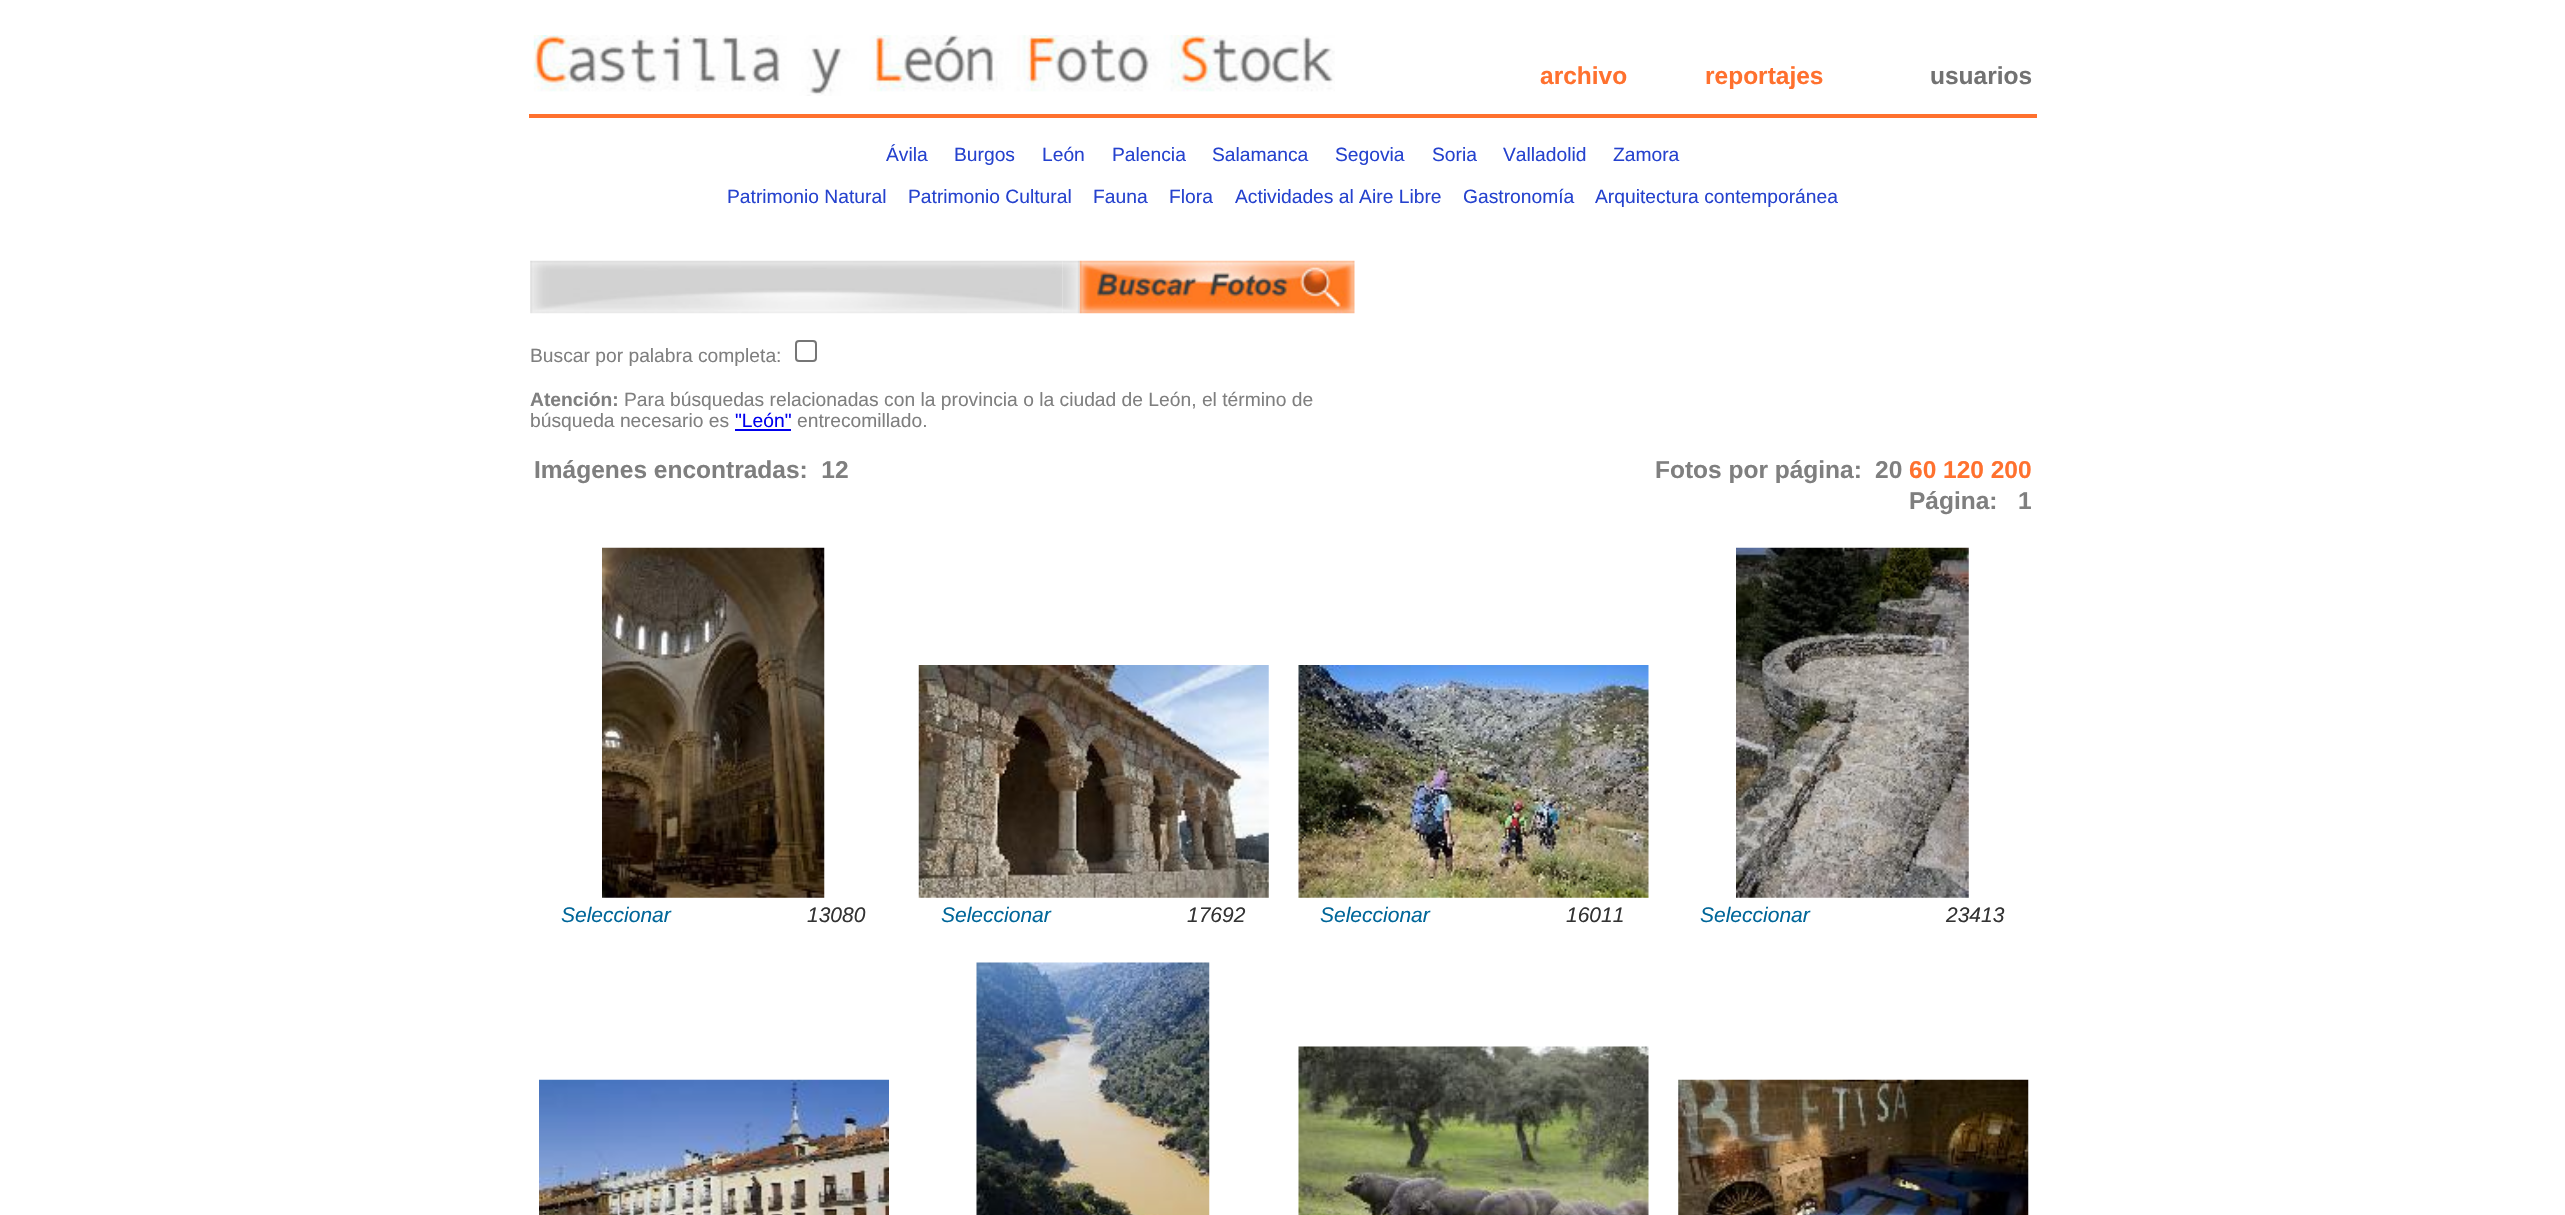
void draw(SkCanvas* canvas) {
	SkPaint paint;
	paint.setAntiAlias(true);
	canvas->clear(0xffffffff);
	canvas->drawImageRect(SkImages::DeferredFromEncodedData(SkData::MakeFromFileName("img1.png")), SkRect::MakeXYWH(533, 35, 802, 61), SkSamplingOptions());
	SkFont f1(fontMgr->matchFamilyStyle("Liberation Sans", SkFontStyle::Bold()), 24.5);
	f1.setSubpixel(true);
	paint.setColor(0xffff712e);
	canvas->drawString("archivo", 1540, 84, f1, paint);
	canvas->drawString("reportajes", 1705, 84, f1, paint);
	paint.setColor(0xff727272);
	canvas->drawString("usuarios", 1930, 84, f1, paint);
	paint.setColor(0xffff712e);
	canvas->drawRect(SkRect::MakeXYWH(529, 114, 1508, 4), paint);
	SkFont f2(fontMgr->matchFamilyStyle("Liberation Sans", SkFontStyle::Normal()), 19.25);
	f2.setSubpixel(true);
	paint.setColor(0xff2542ce);
	canvas->drawString("Ávila", 886, 161, f2, paint);
	canvas->drawString("Burgos", 954, 161, f2, paint);
	canvas->drawString("León", 1042, 161, f2, paint);
	canvas->drawString("Palencia", 1112, 161, f2, paint);
	canvas->drawString("Salamanca", 1212, 161, f2, paint);
	canvas->drawString("Segovia", 1335, 161, f2, paint);
	canvas->drawString("Soria", 1432, 161, f2, paint);
	canvas->drawString("Valladolid", 1503, 161, f2, paint);
	canvas->drawString("Zamora", 1613, 161, f2, paint);
	canvas->drawString("Patrimonio Natural", 727, 203, f2, paint);
	canvas->drawString("Patrimonio Cultural", 908, 203, f2, paint);
	canvas->drawString("Fauna", 1093, 203, f2, paint);
	canvas->drawString("Flora", 1169, 203, f2, paint);
	canvas->drawString("Actividades al Aire Libre", 1235, 203, f2, paint);
	canvas->drawString("Gastronomía", 1463, 203, f2, paint);
	canvas->drawString("Arquitectura contemporánea", 1595, 203, f2, paint);
	canvas->drawImageRect(SkImages::DeferredFromEncodedData(SkData::MakeFromFileName("img2.png")), SkRect::MakeXYWH(530, 260, 16, 54), SkSamplingOptions());
	canvas->drawImageRect(SkImages::DeferredFromEncodedData(SkData::MakeFromFileName("img3.png")), SkRect::MakeXYWH(546, 260, 517, 54), SkSamplingOptions());
	canvas->drawImageRect(SkImages::DeferredFromEncodedData(SkData::MakeFromFileName("img4.png")), SkRect::MakeXYWH(1062, 260, 18, 54), SkSamplingOptions());
	canvas->drawImageRect(SkImages::DeferredFromEncodedData(SkData::MakeFromFileName("img5.png")), SkRect::MakeXYWH(1079, 260, 276, 54), SkSamplingOptions());
	paint.setColor(0xff7f7f7f);
	canvas->drawString("Buscar por palabra completa:", 530, 362, f2, paint);
	paint.setStroke(true);
	paint.setStrokeWidth(2);
	paint.setColor(0xff767676);
	canvas->drawRoundRect(SkRect::MakeXYWH(796, 341, 20, 20), 3, 3, paint);
	SkFont f3(fontMgr->matchFamilyStyle("Liberation Sans", SkFontStyle::Bold()), 19.25);
	f3.setSubpixel(true);
	paint.setStroke(false);
	paint.setColor(0xff7f7f7f);
	canvas->drawString("Atención:", 530, 406, f3, paint);
	canvas->drawString("Para búsquedas relacionadas con la provincia o la ciudad de León, el término de", 624, 406, f2, paint);
	canvas->drawString("búsqueda necesario es", 530, 427, f2, paint);
	paint.setColor(0xff0000ee);
	canvas->drawString("\"León\"", 735, 427, f2, paint);
	canvas->drawRect(SkRect::MakeXYWH(735, 429, 56, 2), paint);
	paint.setColor(0xff7f7f7f);
	canvas->drawString("entrecomillado.", 797, 427, f2, paint);
	canvas->drawString("Imágenes encontradas:  12", 534, 478, f1, paint);
	canvas->drawString("Fotos por página:", 1655, 478, f1, paint);
	canvas->drawString("20", 1875, 478, f1, paint);
	paint.setColor(0xffff712e);
	canvas->drawString("60 120 200", 1909, 478, f1, paint);
	paint.setColor(0xff7f7f7f);
	canvas->drawString("Página:", 1909, 509, f1, paint);
	canvas->drawString("1", 2018, 509, f1, paint);
	canvas->drawImageRect(SkImages::DeferredFromEncodedData(SkData::MakeFromFileName("img6.png")), SkRect::MakeXYWH(602, 547, 223, 351), SkSamplingOptions());
	SkFont f4(fontMgr->matchFamilyStyle("Liberation Sans", SkFontStyle::Italic()), 21);
	f4.setSubpixel(true);
	paint.setColor(0xff006699);
	canvas->drawString("Seleccionar", 561, 922, f4, paint);
	paint.setColor(0xff333333);
	canvas->drawString("13080", 807, 922, f4, paint);
	canvas->drawImageRect(SkImages::DeferredFromEncodedData(SkData::MakeFromFileName("img7.png")), SkRect::MakeXYWH(918, 665, 351, 233), SkSamplingOptions());
	paint.setColor(0xff006699);
	canvas->drawString("Seleccionar", 941, 922, f4, paint);
	paint.setColor(0xff333333);
	canvas->drawString("17692", 1187, 922, f4, paint);
	canvas->drawImageRect(SkImages::DeferredFromEncodedData(SkData::MakeFromFileName("img8.png")), SkRect::MakeXYWH(1298, 665, 351, 233), SkSamplingOptions());
	paint.setColor(0xff006699);
	canvas->drawString("Seleccionar", 1320, 922, f4, paint);
	paint.setColor(0xff333333);
	canvas->drawString("16011", 1566, 922, f4, paint);
	canvas->drawImageRect(SkImages::DeferredFromEncodedData(SkData::MakeFromFileName("img9.png")), SkRect::MakeXYWH(1736, 547, 233, 351), SkSamplingOptions());
	paint.setColor(0xff006699);
	canvas->drawString("Seleccionar", 1700, 922, f4, paint);
	paint.setColor(0xff333333);
	canvas->drawString("23413", 1946, 922, f4, paint);
	canvas->drawImageRect(SkImages::DeferredFromEncodedData(SkData::MakeFromFileName("img10.png")), SkRect::MakeXYWH(539, 1079, 350, 136), SkSamplingOptions());
	canvas->drawImageRect(SkImages::DeferredFromEncodedData(SkData::MakeFromFileName("img11.png")), SkRect::MakeXYWH(976, 962, 234, 253), SkSamplingOptions());
	canvas->drawImageRect(SkImages::DeferredFromEncodedData(SkData::MakeFromFileName("img12.png")), SkRect::MakeXYWH(1298, 1046, 351, 169), SkSamplingOptions());
	canvas->drawImageRect(SkImages::DeferredFromEncodedData(SkData::MakeFromFileName("img13.png")), SkRect::MakeXYWH(1678, 1079, 351, 136), SkSamplingOptions());
}
